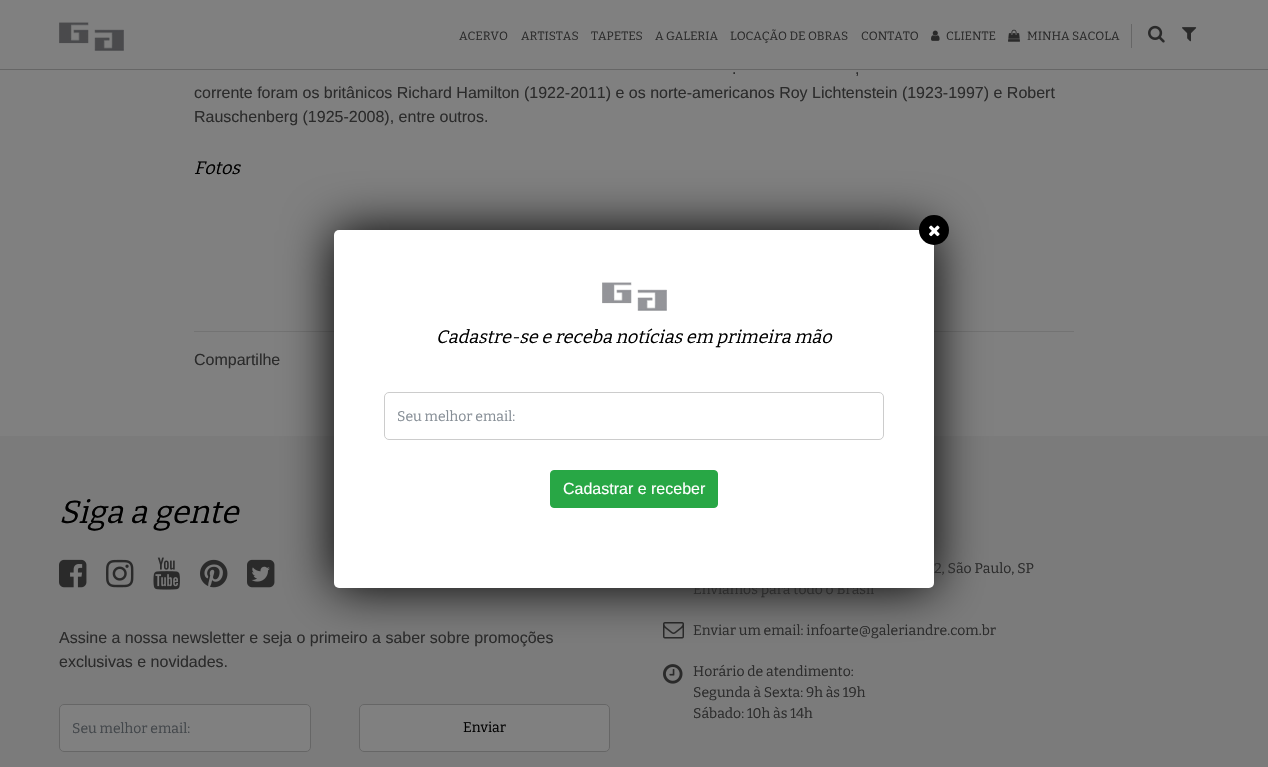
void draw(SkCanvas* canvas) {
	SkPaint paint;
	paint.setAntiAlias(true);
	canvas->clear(0xff808080);
	paint.setColor(0xff666666);
	canvas->drawRect(SkRect::MakeXYWH(0, 69, 1268, 1), paint);
	canvas->drawImageRect(SkImages::DeferredFromEncodedData(SkData::MakeFromFileName("img1.png")), SkRect::MakeXYWH(59, 22, 65, 29), SkSamplingOptions());
	SkFont f1(fontMgr->matchFamilyStyle("Bitter", SkFontStyle::Normal()), 12);
	f1.setSubpixel(true);
	paint.setColor(0xff2b2b2b);
	canvas->drawString("ACERVO", 459, 40, f1, paint);
	canvas->drawString("ARTISTAS", 521, 40, f1, paint);
	canvas->drawString("TAPETES", 591, 40, f1, paint);
	canvas->drawString("A GALERIA", 655, 40, f1, paint);
	canvas->drawString("LOCAÇÃO DE OBRAS", 730, 40, f1, paint);
	canvas->drawString("CONTATO", 861, 40, f1, paint);
	canvas->drawImageRect(SkImages::DeferredFromEncodedData(SkData::MakeFromFileName("img2.png")), SkRect::MakeXYWH(931, 30, 9, 11), SkSamplingOptions());
	canvas->drawString("CLIENTE", 946, 40, f1, paint);
	canvas->drawImageRect(SkImages::DeferredFromEncodedData(SkData::MakeFromFileName("img3.png")), SkRect::MakeXYWH(1008, 29, 12, 13), SkSamplingOptions());
	canvas->drawString("MINHA SACOLA", 1027, 40, f1, paint);
	paint.setColor(0xff666666);
	canvas->drawRect(SkRect::MakeXYWH(1131, 24, 1, 24), paint);
	canvas->drawImageRect(SkImages::DeferredFromEncodedData(SkData::MakeFromFileName("img4.png")), SkRect::MakeXYWH(1148, 25, 17, 18), SkSamplingOptions());
	canvas->drawImageRect(SkImages::DeferredFromEncodedData(SkData::MakeFromFileName("img5.png")), SkRect::MakeXYWH(1182, 27, 15, 15), SkSamplingOptions());
	SkFont f2(fontMgr->matchFamilyStyle("Liberation Sans", SkFontStyle::Normal()), 16);
	f2.setSubpixel(true);
	paint.setColor(0xff2b2b2b);
	canvas->drawString(".", 732, 74, f2, paint);
	canvas->drawString(",", 855, 74, f2, paint);
	canvas->drawString("corrente foram os britânicos Richard Hamilton (1922-2011) e os norte-americanos Roy Lichtenstein (1923-1997) e Robert", 194, 98, f2, paint);
	canvas->drawString("Rauschenberg (1925-2008), entre outros.", 194, 122, f2, paint);
	SkFont f3(fontMgr->matchFamilyStyle("Bitter", SkFontStyle::Italic()), 18);
	f3.setSubpixel(true);
	paint.setColor(0xff000000);
	canvas->drawString("Fotos", 194, 174, f3, paint);
	paint.setColor(0xff737373);
	canvas->drawRect(SkRect::MakeXYWH(194, 331, 880, 1), paint);
	paint.setColor(0xff2b2b2b);
	canvas->drawString("Compartilhe", 194, 365, f2, paint);
	paint.setColor(0xff7b7b7b);
	canvas->drawRect(SkRect::MakeXYWH(0, 436, 1268, 331), paint);
	canvas->drawImageRect(SkImages::DeferredFromEncodedData(SkData::MakeFromFileName("img12.png")), SkRect::MakeXYWH(247, 559, 28, 29), SkSamplingOptions());
	canvas->drawImageRect(SkImages::DeferredFromEncodedData(SkData::MakeFromFileName("img13.png")), SkRect::MakeXYWH(663, 622, 21, 17), SkSamplingOptions());
	paint.setColor(0xff000000);
	paint.setMaskFilter(SkMaskFilter::MakeBlur(kNormal_SkBlurStyle, 25));
	canvas->drawRoundRect(SkRect::MakeXYWH(334, 230, 600, 358), 5, 5, paint);
	paint.setMaskFilter(nullptr);
	SkFont f4(fontMgr->matchFamilyStyle("Bitter", SkFontStyle::Normal()), 14);
	f4.setSubpixel(true);
	paint.setColor(0xff2b2b2b);
	canvas->drawString("Enviamos para todo o Brasil", 693, 594, f4, paint);
	paint.setColor(0xffffffff);
	canvas->drawRoundRect(SkRect::MakeXYWH(334, 230, 600, 358), 5, 5, paint);
	paint.setColor(0xff000000);
	canvas->drawCircle(934, 230, 15, paint);
	canvas->drawImageRect(SkImages::DeferredFromEncodedData(SkData::MakeFromFileName("img6.png")), SkRect::MakeXYWH(929, 225, 11, 12), SkSamplingOptions());
	canvas->drawImageRect(SkImages::DeferredFromEncodedData(SkData::MakeFromFileName("img7.png")), SkRect::MakeXYWH(602, 282, 65, 29), SkSamplingOptions());
	canvas->drawString("Cadastre-se e receba notícias em primeira mão", 436, 343, f3, paint);
	paint.setStroke(true);
	paint.setStrokeWidth(1);
	paint.setColor(0xffcccccc);
	canvas->drawRoundRect(SkRect::MakeXYWH(384.5, 392.5, 499, 47), 4.5, 4.5, paint);
	paint.setStroke(false);
	paint.setColor(0xff868e96);
	canvas->drawString("Seu melhor email:", 397, 421, f4, paint);
	paint.setColor(0xff28a745);
	canvas->drawRoundRect(SkRect::MakeXYWH(550.5, 470.5, 167, 37), 3.5, 3.5, paint);
	paint.setStroke(true);
	canvas->drawRoundRect(SkRect::MakeXYWH(550.5, 470.5, 167, 37), 3.5, 3.5, paint);
	paint.setStroke(false);
	paint.setColor(0xffffffff);
	canvas->drawString("Cadastrar e receber", 563, 494, f2, paint);
	SkFont f5(fontMgr->matchFamilyStyle("Bitter", SkFontStyle::Italic()), 32);
	f5.setSubpixel(true);
	paint.setColor(0xff000000);
	canvas->drawString("Siga a gente", 59, 523, f5, paint);
	canvas->drawImageRect(SkImages::DeferredFromEncodedData(SkData::MakeFromFileName("img8.png")), SkRect::MakeXYWH(59, 559, 28, 29), SkSamplingOptions());
	canvas->drawImageRect(SkImages::DeferredFromEncodedData(SkData::MakeFromFileName("img9.png")), SkRect::MakeXYWH(106, 559, 28, 29), SkSamplingOptions());
	canvas->drawImageRect(SkImages::DeferredFromEncodedData(SkData::MakeFromFileName("img10.png")), SkRect::MakeXYWH(153, 557, 27, 33), SkSamplingOptions());
	canvas->drawImageRect(SkImages::DeferredFromEncodedData(SkData::MakeFromFileName("img11.png")), SkRect::MakeXYWH(200, 559, 28, 29), SkSamplingOptions());
	paint.setColor(0xff2b2b2b);
	canvas->drawString("Assine a nossa newsletter e seja o primeiro a saber sobre promoções", 59, 643, f2, paint);
	canvas->drawString("exclusivas e novidades.", 59, 667, f2, paint);
	paint.setColor(0xff808080);
	canvas->drawRoundRect(SkRect::MakeXYWH(59.5, 704.5, 251, 47), 4.5, 4.5, paint);
	paint.setStroke(true);
	paint.setColor(0xff666666);
	canvas->drawRoundRect(SkRect::MakeXYWH(59.5, 704.5, 251, 47), 4.5, 4.5, paint);
	paint.setStroke(false);
	paint.setColor(0xff43474b);
	canvas->drawString("Seu melhor email:", 72, 733, f4, paint);
	paint.setColor(0xff808080);
	canvas->drawRoundRect(SkRect::MakeXYWH(359.5, 704.5, 250, 47), 4.5, 4.5, paint);
	paint.setStroke(true);
	paint.setColor(0xff666666);
	canvas->drawRoundRect(SkRect::MakeXYWH(359.5, 704.5, 250, 47), 4.5, 4.5, paint);
	paint.setStroke(false);
	paint.setColor(0xff000000);
	canvas->drawString("Enviar", 463, 732, f4, paint);
	paint.setColor(0xff2b2b2b);
	canvas->drawString("2, São Paulo, SP", 934, 573, f4, paint);
	canvas->drawString("Enviar um email: infoarte@galeriandre.com.br", 693, 635, f4, paint);
	canvas->drawImageRect(SkImages::DeferredFromEncodedData(SkData::MakeFromFileName("img14.png")), SkRect::MakeXYWH(663, 664, 20, 20), SkSamplingOptions());
	canvas->drawString("Horário de atendimento:", 693, 676, f4, paint);
	canvas->drawString("Segunda à Sexta: 9h às 19h", 693, 697, f4, paint);
	canvas->drawString("Sábado: 10h às 14h", 693, 718, f4, paint);
}
